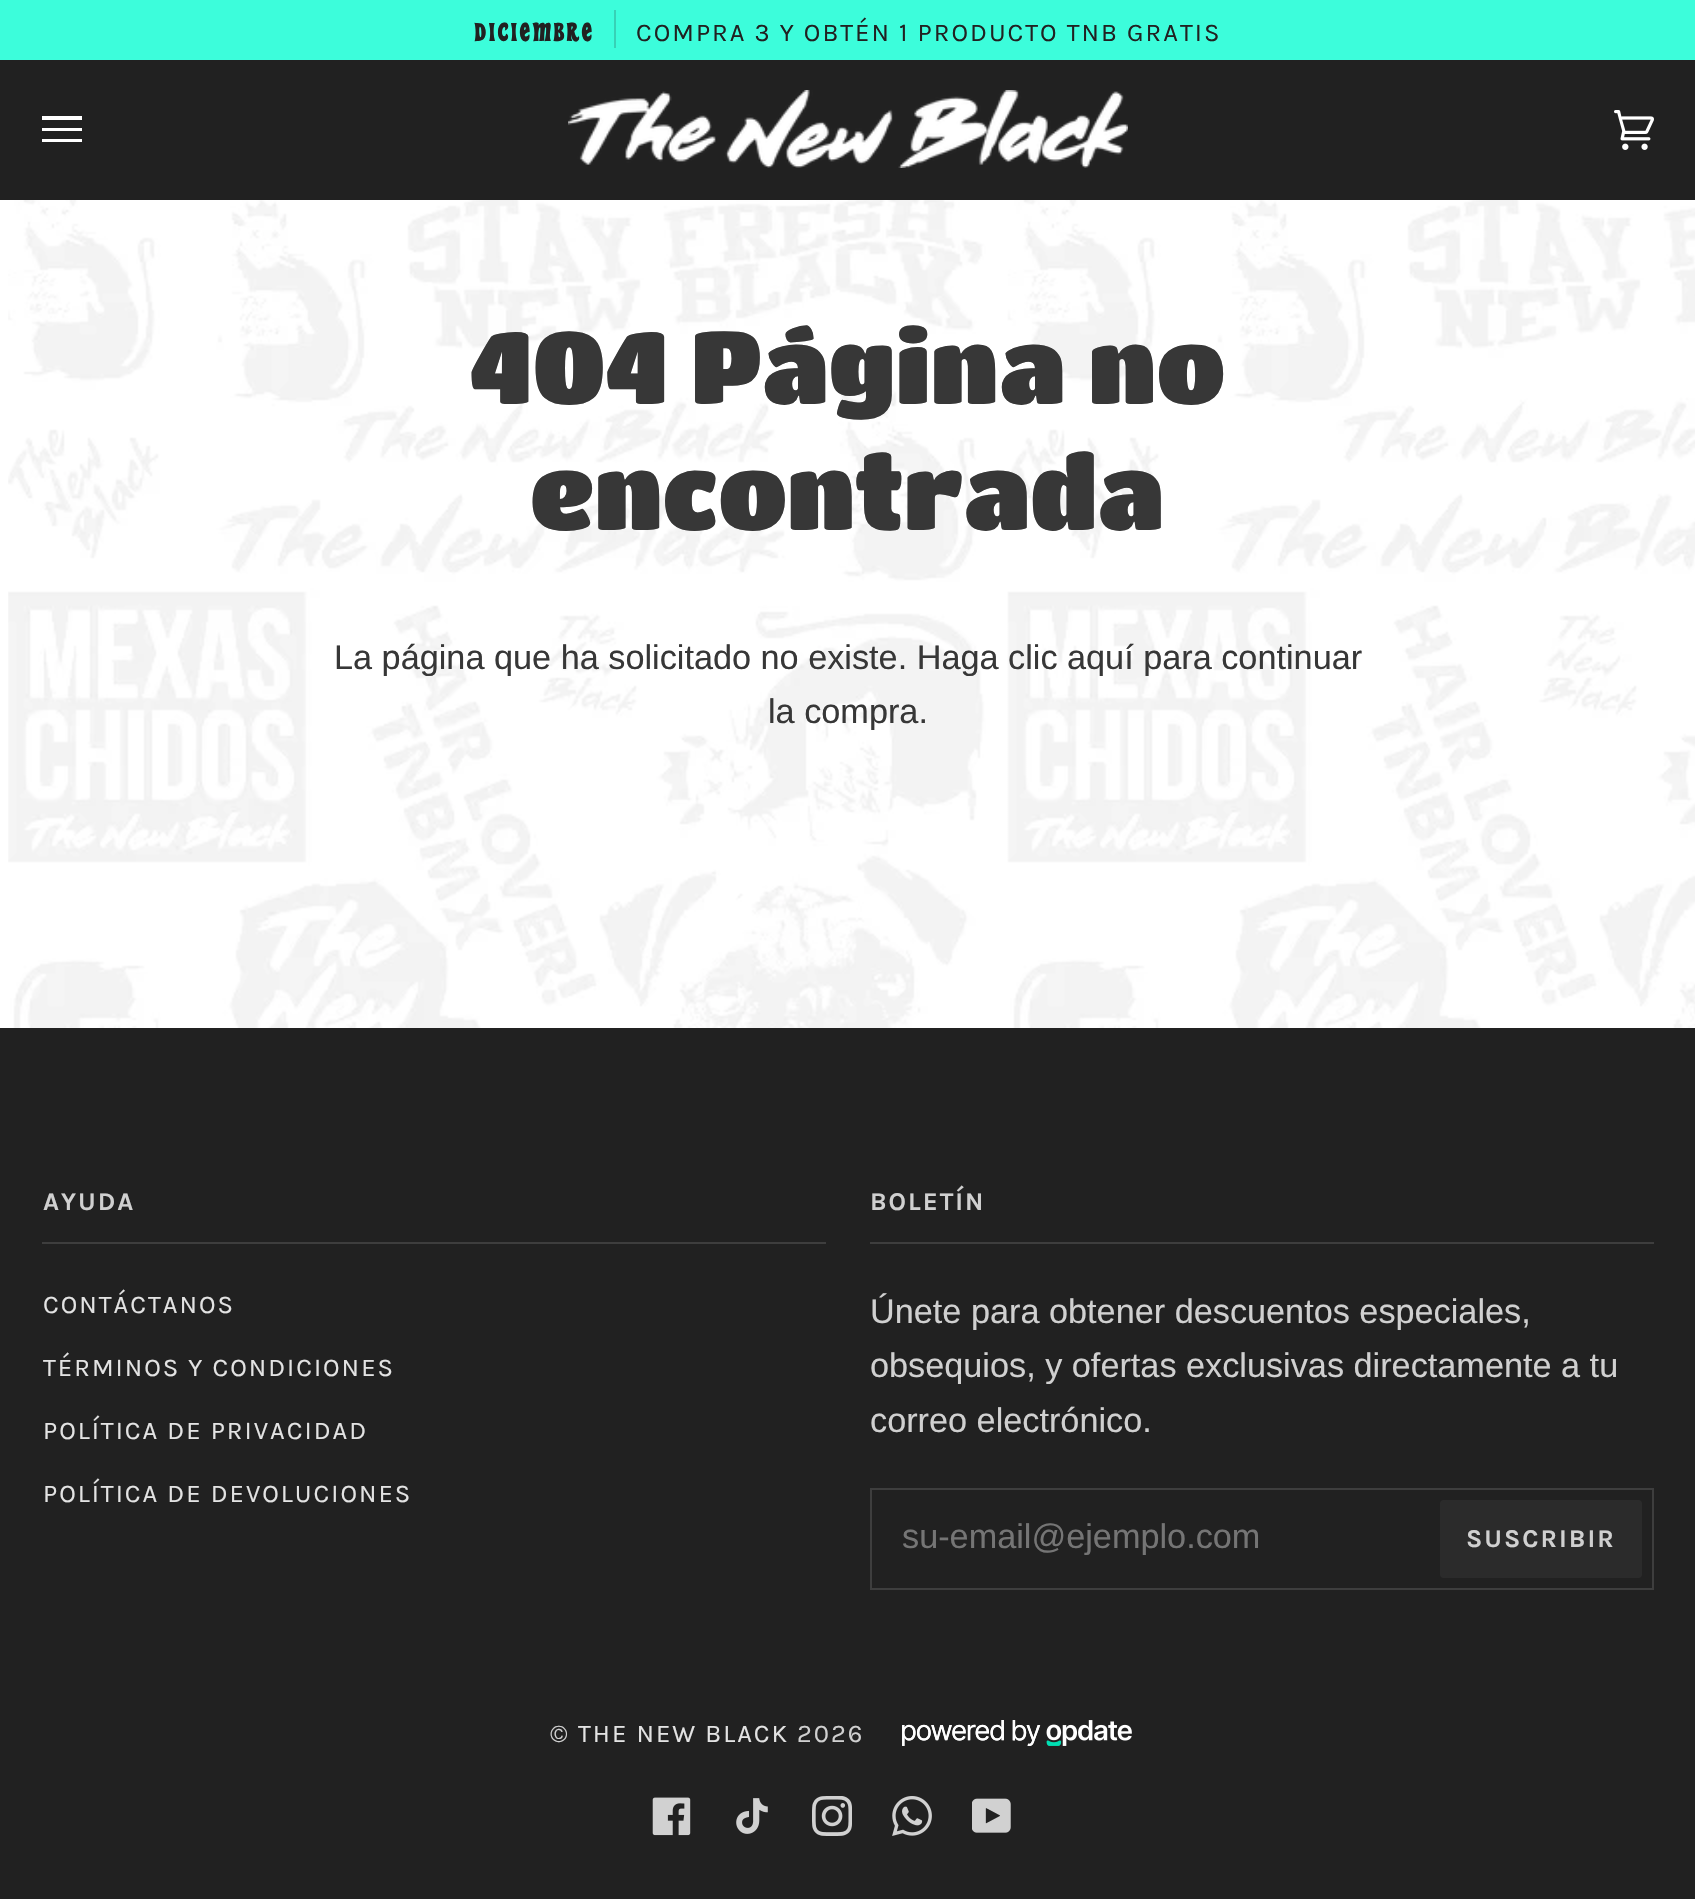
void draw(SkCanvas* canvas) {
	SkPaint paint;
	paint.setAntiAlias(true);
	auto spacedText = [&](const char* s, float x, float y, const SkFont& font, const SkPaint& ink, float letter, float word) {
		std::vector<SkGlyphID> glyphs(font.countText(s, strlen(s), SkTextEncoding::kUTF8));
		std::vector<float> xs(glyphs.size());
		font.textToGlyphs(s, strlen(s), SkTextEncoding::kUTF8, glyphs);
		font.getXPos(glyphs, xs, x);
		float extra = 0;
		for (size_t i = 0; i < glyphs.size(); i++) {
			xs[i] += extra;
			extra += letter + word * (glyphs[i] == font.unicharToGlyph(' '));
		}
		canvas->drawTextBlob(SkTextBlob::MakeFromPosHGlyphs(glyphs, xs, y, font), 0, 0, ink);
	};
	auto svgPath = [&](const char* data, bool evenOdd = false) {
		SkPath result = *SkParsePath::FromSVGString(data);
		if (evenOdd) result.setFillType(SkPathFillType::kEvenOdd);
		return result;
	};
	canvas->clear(0xffffffff);
	paint.setColor(0xff3cfddb);
	canvas->drawRect(SkRect::MakeXYWH(0, 0, 1695, 60), paint);
	SkFont f1(fontMgr->matchFamilyStyle("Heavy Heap", SkFontStyle(900, SkFontStyle::kNormal_Width, SkFontStyle::kUpright_Slant)), 25.6);
	f1.setSubpixel(true);
	paint.setColor(0xff212121);
	spacedText("DICIEMBRE", 474, 41, f1, paint, 2, 0);
	paint.setColor(0xff37d1b6);
	canvas->drawRect(SkRect::MakeXYWH(614, 10, 2, 38), paint);
	SkFont f2(fontMgr->matchFamilyStyle("Karla", SkFontStyle::Normal()), 25.6);
	f2.setSubpixel(true);
	paint.setColor(0xff212121);
	spacedText("COMPRA 3 Y OBTÉN 1 PRODUCTO TNB GRATIS", 636, 41, f2, paint, 2, 0);
	canvas->drawRect(SkRect::MakeXYWH(0, 60, 1695, 140), paint);
	paint.setColor(0xffffffff);
	canvas->drawPath(svgPath("M42 116H82V120H42ZM42 128H82V131H42ZM42 139H82V142H42Z"), paint);
	canvas->drawImageRect(SkImages::DeferredFromEncodedData(SkData::MakeFromFileName("img1.png")), SkRect::MakeXYWH(568, 90, 560, 78), SkSamplingOptions());
	canvas->drawImageRect(SkImages::DeferredFromEncodedData(SkData::MakeFromFileName("img2.png")), SkRect::MakeXYWH(1614, 110, 40, 40), SkSamplingOptions());
	canvas->drawImageRect(SkImages::DeferredFromEncodedData(SkData::MakeFromFileName("img3.png")), SkRect::MakeXYWH(8, 200, 1687, 828), SkSamplingOptions());
	SkFont f3(fontMgr->matchFamilyStyle("Titan One", SkFontStyle::Normal()), 101);
	f3.setSubpixel(true);
	paint.setColor(0xff373737);
	canvas->drawString("404 Página no", 470, 404, f3, paint);
	canvas->drawString("encontrada", 530, 530, f3, paint);
	SkFont f4(fontMgr->matchFamilyStyle("Arimo", SkFontStyle::Normal()), 34.25);
	f4.setSubpixel(true);
	canvas->drawString("La página que ha solicitado no existe. Haga clic", 334, 669, f4, paint);
	canvas->drawString("aquí para continuar", 1067, 669, f4, paint);
	canvas->drawString("la compra.", 768, 723, f4, paint);
	paint.setColor(0xff212121);
	canvas->drawRect(SkRect::MakeXYWH(0, 1028, 1695, 871), paint);
	SkFont f5(fontMgr->matchFamilyStyle("Karla", SkFontStyle::Bold()), 25.6);
	f5.setSubpixel(true);
	paint.setColor(0xffd0d0d0);
	spacedText("AYUDA", 43, 1210, f5, paint, 2, 0);
	paint.setColor(0xff3e3e3e);
	canvas->drawRect(SkRect::MakeXYWH(42, 1242, 784, 2), paint);
	paint.setColor(0xffe3e3e3);
	spacedText("CONTÁCTANOS", 43, 1313, f2, paint, 2, 0);
	spacedText("TÉRMINOS Y CONDICIONES", 43, 1376, f2, paint, 2, 0);
	spacedText("POLÍTICA DE PRIVACIDAD", 43, 1439, f2, paint, 2, 0);
	spacedText("POLÍTICA DE DEVOLUCIONES", 43, 1502, f2, paint, 2, 0);
	paint.setColor(0xffd0d0d0);
	spacedText("BOLETÍN", 870, 1210, f5, paint, 2, 0);
	paint.setColor(0xff3e3e3e);
	canvas->drawRect(SkRect::MakeXYWH(870, 1242, 784, 2), paint);
	paint.setColor(0xffd0d0d0);
	canvas->drawString("Únete para obtener descuentos especiales,", 870, 1323, f4, paint);
	canvas->drawString("obsequios, y ofertas exclusivas directamente a tu", 870, 1377, f4, paint);
	canvas->drawString("correo electrónico.", 870, 1432, f4, paint);
	paint.setStroke(true);
	paint.setStrokeWidth(2);
	paint.setColor(0xff3e3e3e);
	canvas->drawRect(SkRect::MakeXYWH(871, 1489, 782, 100), paint);
	paint.setStroke(false);
	paint.setColor(0xff757575);
	canvas->drawString("su-email@ejemplo.com", 902, 1548, f4, paint);
	paint.setColor(0xff2b2b2b);
	canvas->drawRoundRect(SkRect::MakeXYWH(1440, 1500, 202, 78), 4, 4, paint);
	paint.setColor(0xffd0d0d0);
	spacedText("SUSCRIBIR", 1466, 1547, f5, paint, 2, 0);
	spacedText("©", 550, 1742, f2, paint, 2, 0);
	paint.setColor(0xffe3e3e3);
	spacedText("THE NEW BLACK", 578, 1742, f2, paint, 2, 0);
	paint.setColor(0xffd0d0d0);
	spacedText("2026", 797, 1742, f2, paint, 2, 0);
	canvas->drawImageRect(SkImages::DeferredFromEncodedData(SkData::MakeFromFileName("img4.png")), SkRect::MakeXYWH(902, 1720, 230, 26), SkSamplingOptions());
	canvas->drawImageRect(SkImages::DeferredFromEncodedData(SkData::MakeFromFileName("img5.png")), SkRect::MakeXYWH(652, 1797, 39, 39), SkSamplingOptions());
	canvas->drawImageRect(SkImages::DeferredFromEncodedData(SkData::MakeFromFileName("img6.png")), SkRect::MakeXYWH(736, 1798, 32, 36), SkSamplingOptions());
	canvas->drawImageRect(SkImages::DeferredFromEncodedData(SkData::MakeFromFileName("img7.png")), SkRect::MakeXYWH(812, 1796, 40, 40), SkSamplingOptions());
	canvas->drawImageRect(SkImages::DeferredFromEncodedData(SkData::MakeFromFileName("img8.png")), SkRect::MakeXYWH(892, 1796, 40, 40), SkSamplingOptions());
	canvas->drawImageRect(SkImages::DeferredFromEncodedData(SkData::MakeFromFileName("img9.png")), SkRect::MakeXYWH(972, 1798, 39, 35), SkSamplingOptions());
}
